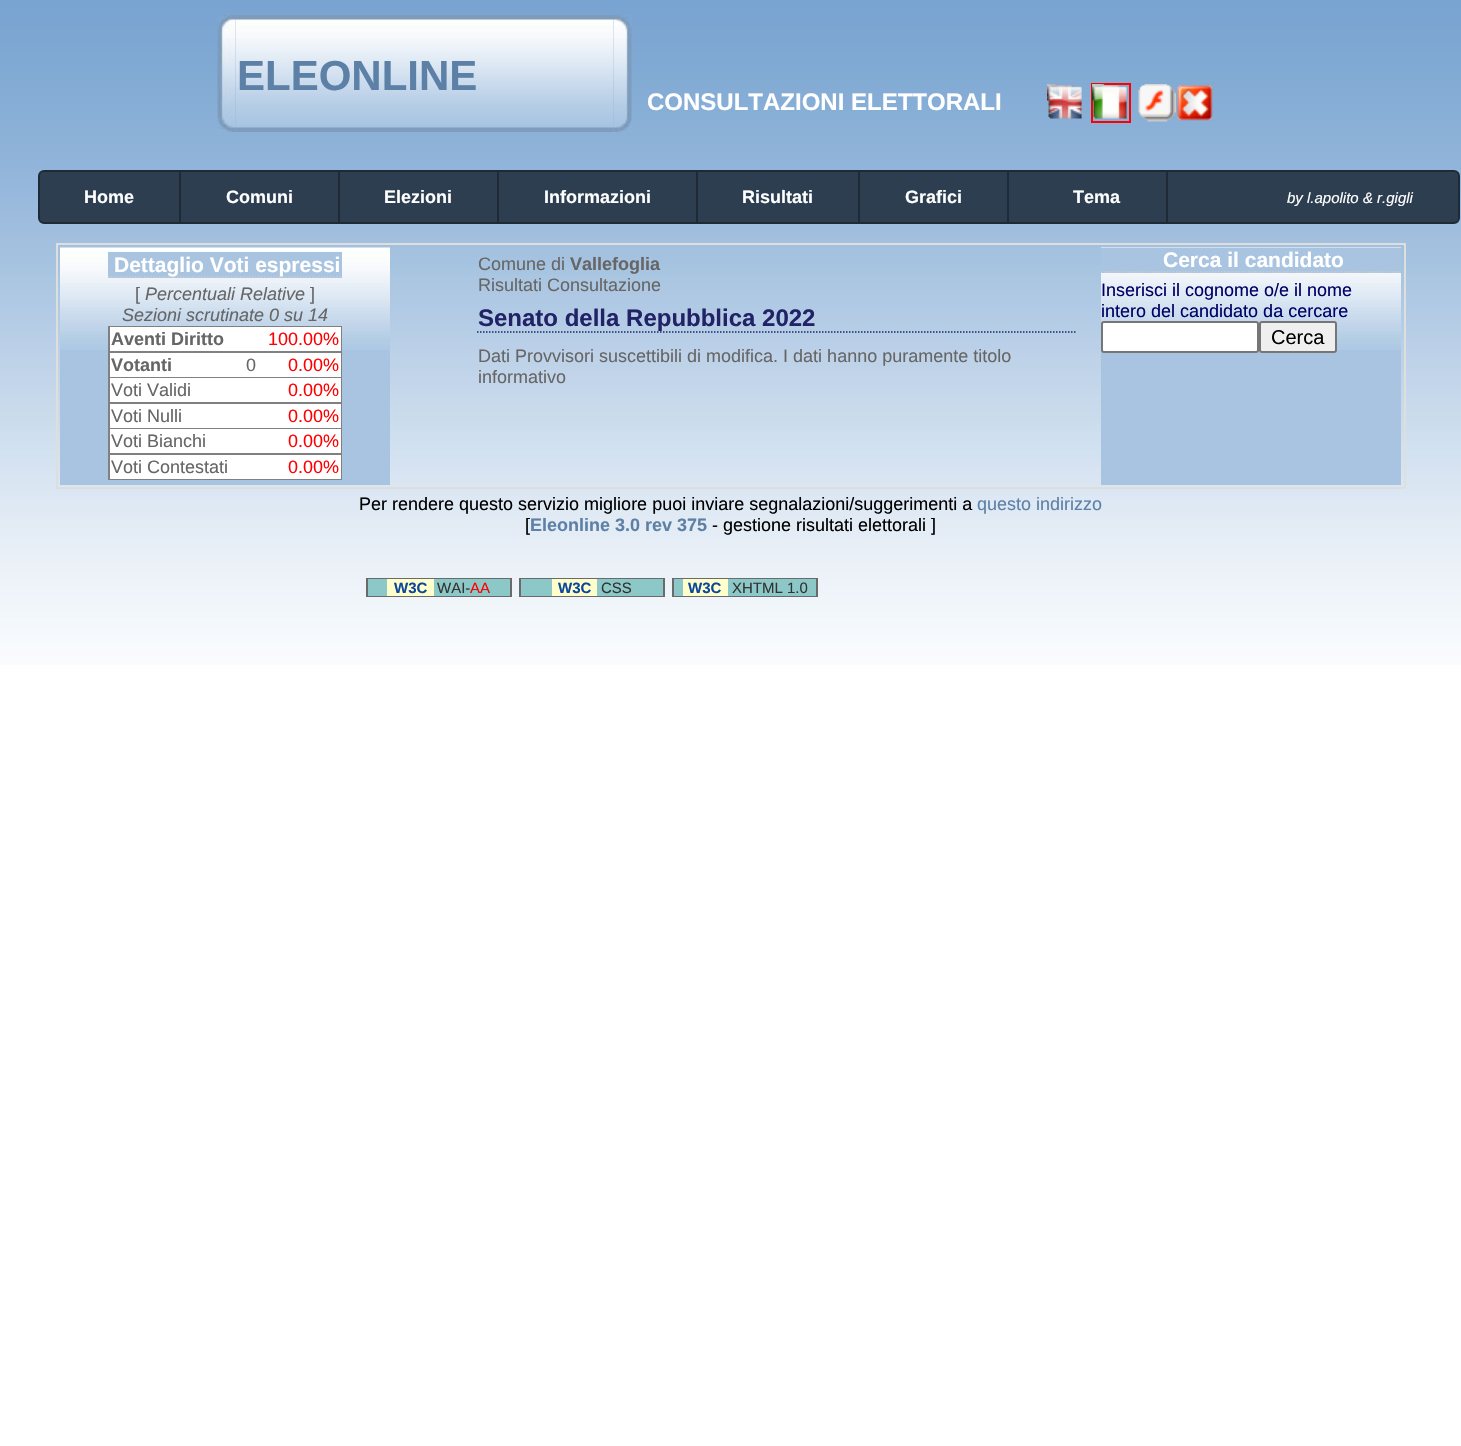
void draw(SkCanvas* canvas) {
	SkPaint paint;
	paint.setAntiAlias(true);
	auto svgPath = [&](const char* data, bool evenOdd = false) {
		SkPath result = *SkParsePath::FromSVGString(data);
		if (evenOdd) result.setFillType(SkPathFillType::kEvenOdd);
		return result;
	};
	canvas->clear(0xffffffff);
	canvas->drawImageRect(SkImages::DeferredFromEncodedData(SkData::MakeFromFileName("img1.png")), SkRect::MakeXYWH(0, 0, 1461, 665), SkSamplingOptions());
	canvas->drawImageRect(SkImages::DeferredFromEncodedData(SkData::MakeFromFileName("img2.png")), SkRect::MakeXYWH(217, 15, 19, 117), SkSamplingOptions());
	canvas->drawImageRect(SkImages::DeferredFromEncodedData(SkData::MakeFromFileName("img3.png")), SkRect::MakeXYWH(235, 15, 379, 117), SkSamplingOptions());
	SkFont f1(fontMgr->matchFamilyStyle("Liberation Sans", SkFontStyle::Bold()), 42);
	f1.setSubpixel(true);
	paint.setColor(0xff5d81a6);
	canvas->drawString("ELEONLINE", 237, 90, f1, paint);
	canvas->drawImageRect(SkImages::DeferredFromEncodedData(SkData::MakeFromFileName("img4.png")), SkRect::MakeXYWH(613, 15, 19, 117), SkSamplingOptions());
	SkFont f2(fontMgr->matchFamilyStyle("Liberation Sans", SkFontStyle::Bold()), 24);
	f2.setSubpixel(true);
	paint.setColor(0xffffffff);
	canvas->drawString("CONSULTAZIONI ELETTORALI", 647, 110, f2, paint);
	canvas->drawImageRect(SkImages::DeferredFromEncodedData(SkData::MakeFromFileName("img5.png")), SkRect::MakeXYWH(1047, 84, 35, 35), SkSamplingOptions());
	paint.setStroke(true);
	paint.setStrokeWidth(2);
	paint.setColor(0xffff0000);
	canvas->drawRect(SkRect::MakeXYWH(1092, 84, 38, 38), paint);
	canvas->drawImageRect(SkImages::DeferredFromEncodedData(SkData::MakeFromFileName("img6.png")), SkRect::MakeXYWH(1092, 84, 35, 35), SkSamplingOptions());
	canvas->drawImageRect(SkImages::DeferredFromEncodedData(SkData::MakeFromFileName("img7.png")), SkRect::MakeXYWH(1138, 84, 38, 38), SkSamplingOptions());
	canvas->drawImageRect(SkImages::DeferredFromEncodedData(SkData::MakeFromFileName("img8.png")), SkRect::MakeXYWH(1177, 85, 36, 36), SkSamplingOptions());
	paint.setStroke(false);
	paint.setColor(0xff2c3e50);
	canvas->drawRoundRect(SkRect::MakeXYWH(39, 171, 1420, 52), 5, 5, paint);
	paint.setStroke(true);
	paint.setColor(0xff1e2a36);
	canvas->drawRoundRect(SkRect::MakeXYWH(39, 171, 1420, 52), 5, 5, paint);
	SkFont f3(fontMgr->matchFamilyStyle("Liberation Sans", SkFontStyle::Bold()), 18);
	f3.setSubpixel(true);
	paint.setStroke(false);
	paint.setColor(0xffffffff);
	canvas->drawString("Home", 84, 203, f3, paint);
	paint.setColor(0xff1e2a36);
	canvas->drawRect(SkRect::MakeXYWH(179, 171, 2, 51), paint);
	paint.setColor(0xffffffff);
	canvas->drawString("Comuni", 226, 203, f3, paint);
	paint.setColor(0xff1e2a36);
	canvas->drawRect(SkRect::MakeXYWH(338, 171, 2, 51), paint);
	paint.setColor(0xffffffff);
	canvas->drawString("Elezioni", 384, 203, f3, paint);
	paint.setColor(0xff1e2a36);
	canvas->drawRect(SkRect::MakeXYWH(497, 171, 2, 51), paint);
	paint.setColor(0xffffffff);
	canvas->drawString("Informazioni", 544, 203, f3, paint);
	paint.setColor(0xff1e2a36);
	canvas->drawRect(SkRect::MakeXYWH(696, 171, 2, 51), paint);
	paint.setColor(0xffffffff);
	canvas->drawString("Risultati", 742, 203, f3, paint);
	paint.setColor(0xff1e2a36);
	canvas->drawRect(SkRect::MakeXYWH(858, 171, 2, 51), paint);
	paint.setColor(0xffffffff);
	canvas->drawString("Grafici", 905, 203, f3, paint);
	paint.setColor(0xff1e2a36);
	canvas->drawRect(SkRect::MakeXYWH(1007, 171, 2, 51), paint);
	paint.setColor(0xffffffff);
	canvas->drawString("Tema", 1073, 203, f3, paint);
	paint.setColor(0xff1e2a36);
	canvas->drawRect(SkRect::MakeXYWH(1166, 171, 2, 51), paint);
	SkFont f4(fontMgr->matchFamilyStyle("Liberation Sans", SkFontStyle::Italic()), 15);
	f4.setSubpixel(true);
	paint.setColor(0xffffffff);
	canvas->drawString("by l.apolito & r.gigli", 1287, 203, f4, paint);
	paint.setStroke(true);
	paint.setColor(0xffdededc);
	canvas->drawRect(SkRect::MakeXYWH(57, 244, 1348, 244), paint);
	paint.setStroke(false);
	paint.setColor(0xffa8c4e1);
	canvas->drawRect(SkRect::MakeXYWH(60, 350, 330, 135), paint);
	canvas->drawImageRect(SkImages::DeferredFromEncodedData(SkData::MakeFromFileName("img9.png")), SkRect::MakeXYWH(60, 247, 330, 103), SkSamplingOptions());
	canvas->drawRect(SkRect::MakeXYWH(108, 252, 234, 26), paint);
	paint.setStroke(true);
	paint.setStrokeWidth(1.5);
	paint.setColor(0xffcccccc);
	paint.setPathEffect(SkDashPathEffect::Make({{1.5f, 1.5f}}, 0));
	canvas->drawPath(svgPath("M108 277H342"), paint);
	paint.setPathEffect(nullptr);
	SkFont f5(fontMgr->matchFamilyStyle("Liberation Sans", SkFontStyle::Bold()), 21);
	f5.setSubpixel(true);
	paint.setStroke(false);
	paint.setColor(0xffffffff);
	canvas->drawString("Dettaglio Voti espressi", 114, 272, f5, paint);
	SkFont f6(fontMgr->matchFamilyStyle("Liberation Sans", SkFontStyle::Normal()), 18);
	f6.setSubpixel(true);
	paint.setColor(0xff666666);
	canvas->drawString("[", 135, 300, f6, paint);
	SkFont f7(fontMgr->matchFamilyStyle("Liberation Sans", SkFontStyle::Italic()), 18);
	f7.setSubpixel(true);
	canvas->drawString("Percentuali Relative", 145, 300, f7, paint);
	canvas->drawString("]", 310, 300, f6, paint);
	canvas->drawString("Sezioni scrutinate 0 su 14", 122, 321, f7, paint);
	paint.setColor(0xff808080);
	canvas->drawRect(SkRect::MakeXYWH(108, 326, 234, 154), paint);
	paint.setColor(0xffffffff);
	canvas->drawRect(SkRect::MakeXYWH(110, 327, 231, 24), paint);
	paint.setColor(0xff666666);
	canvas->drawString("Aventi Diritto", 111, 345, f3, paint);
	paint.setColor(0xffff0000);
	canvas->drawString("100.00%", 268, 345, f6, paint);
	paint.setColor(0xffffffff);
	canvas->drawRect(SkRect::MakeXYWH(110, 353, 231, 24), paint);
	paint.setColor(0xff666666);
	canvas->drawString("Votanti", 111, 371, f3, paint);
	canvas->drawString("0", 246, 371, f6, paint);
	paint.setColor(0xffff0000);
	canvas->drawString("0.00%", 288, 371, f6, paint);
	paint.setColor(0xffffffff);
	canvas->drawRect(SkRect::MakeXYWH(110, 378, 231, 24), paint);
	paint.setColor(0xff666666);
	canvas->drawString("Voti Validi", 111, 396, f6, paint);
	paint.setColor(0xffff0000);
	canvas->drawString("0.00%", 288, 396, f6, paint);
	paint.setColor(0xffffffff);
	canvas->drawRect(SkRect::MakeXYWH(110, 404, 231, 24), paint);
	paint.setColor(0xff666666);
	canvas->drawString("Voti Nulli", 111, 422, f6, paint);
	paint.setColor(0xffff0000);
	canvas->drawString("0.00%", 288, 422, f6, paint);
	paint.setColor(0xffffffff);
	canvas->drawRect(SkRect::MakeXYWH(110, 429, 231, 24), paint);
	paint.setColor(0xff666666);
	canvas->drawString("Voti Bianchi", 111, 447, f6, paint);
	paint.setColor(0xffff0000);
	canvas->drawString("0.00%", 288, 447, f6, paint);
	paint.setColor(0xffffffff);
	canvas->drawRect(SkRect::MakeXYWH(110, 455, 231, 24), paint);
	paint.setColor(0xff666666);
	canvas->drawString("Voti Contestati", 111, 473, f6, paint);
	paint.setColor(0xffff0000);
	canvas->drawString("0.00%", 288, 473, f6, paint);
	paint.setColor(0xff666666);
	canvas->drawString("Comune di", 478, 270, f6, paint);
	canvas->drawString("Vallefoglia", 570, 270, f3, paint);
	canvas->drawString("Risultati Consultazione", 478, 291, f6, paint);
	paint.setStroke(true);
	paint.setColor(0xff222266);
	paint.setPathEffect(SkDashPathEffect::Make({{1.5f, 1.5f}}, 0));
	canvas->drawPath(svgPath("M477 332H1075.5"), paint);
	paint.setPathEffect(nullptr);
	paint.setStroke(false);
	canvas->drawString("Senato della Repubblica 2022", 478, 326, f2, paint);
	paint.setColor(0xff666666);
	canvas->drawString("Dati Provvisori suscettibili di modifica. I dati hanno puramente titolo", 478, 362, f6, paint);
	canvas->drawString("informativo", 478, 383, f6, paint);
	paint.setColor(0xffa8c4e1);
	canvas->drawRect(SkRect::MakeXYWH(1101, 350, 300, 135), paint);
	canvas->drawImageRect(SkImages::DeferredFromEncodedData(SkData::MakeFromFileName("img10.png")), SkRect::MakeXYWH(1101, 247, 300, 103), SkSamplingOptions());
	canvas->drawRect(SkRect::MakeXYWH(1101, 248, 300, 25), paint);
	paint.setStroke(true);
	paint.setColor(0xffcccccc);
	paint.setPathEffect(SkDashPathEffect::Make({{1.5f, 1.5f}}, 0));
	canvas->drawPath(svgPath("M1101 272H1401"), paint);
	paint.setPathEffect(nullptr);
	paint.setStroke(false);
	paint.setColor(0xffffffff);
	canvas->drawString("Cerca il candidato", 1163, 267, f5, paint);
	paint.setColor(0xff000066);
	canvas->drawString("Inserisci il cognome o/e il nome", 1101, 296, f6, paint);
	canvas->drawString("intero del candidato da cercare", 1101, 317, f6, paint);
	paint.setColor(0xffffffff);
	canvas->drawRoundRect(SkRect::MakeXYWH(1102, 322, 156, 30), 2, 2, paint);
	paint.setStroke(true);
	paint.setStrokeWidth(2);
	paint.setColor(0xff767676);
	canvas->drawRoundRect(SkRect::MakeXYWH(1102, 322, 156, 30), 2, 2, paint);
	paint.setStroke(false);
	paint.setColor(0xffefefef);
	canvas->drawRoundRect(SkRect::MakeXYWH(1260, 322, 76, 30), 2, 2, paint);
	paint.setStroke(true);
	paint.setColor(0xff767676);
	canvas->drawRoundRect(SkRect::MakeXYWH(1260, 322, 76, 30), 2, 2, paint);
	SkFont f8(fontMgr->matchFamilyStyle("Liberation Sans", SkFontStyle::Normal()), 20);
	f8.setSubpixel(true);
	paint.setStroke(false);
	paint.setColor(0xff000000);
	canvas->drawString("Cerca", 1271, 344, f8, paint);
	canvas->drawString("Per rendere questo servizio migliore puoi inviare segnalazioni/suggerimenti a", 359, 510, f6, paint);
	paint.setColor(0xff5d81a6);
	canvas->drawString("questo indirizzo", 977, 510, f6, paint);
	paint.setColor(0xff000000);
	canvas->drawString("[", 525, 531, f6, paint);
	paint.setColor(0xff5d81a6);
	canvas->drawString("Eleonline 3.0 rev 375", 530, 531, f3, paint);
	paint.setColor(0xff000000);
	canvas->drawString("- gestione risultati elettorali ]", 712, 531, f6, paint);
	paint.setStroke(true);
	paint.setColor(0xff6a6a6a);
	canvas->drawRect(SkRect::MakeXYWH(367, 579, 144, 17), paint);
	paint.setStroke(false);
	paint.setColor(0xff8cc8c7);
	canvas->drawRect(SkRect::MakeXYWH(368, 579, 142, 17), paint);
	paint.setColor(0xffffffcc);
	canvas->drawRect(SkRect::MakeXYWH(387, 579, 47, 17), paint);
	SkFont f9(fontMgr->matchFamilyStyle("Liberation Sans", SkFontStyle::Bold()), 15);
	f9.setSubpixel(true);
	paint.setColor(0xff0c479d);
	canvas->drawString("W3C", 394, 593, f9, paint);
	SkFont f10(fontMgr->matchFamilyStyle("Liberation Sans", SkFontStyle::Normal()), 15);
	f10.setSubpixel(true);
	paint.setColor(0xff333333);
	canvas->drawString("WAI-", 437, 593, f10, paint);
	paint.setColor(0xffff0000);
	canvas->drawString("AA", 470, 593, f10, paint);
	paint.setStroke(true);
	paint.setColor(0xff6a6a6a);
	canvas->drawRect(SkRect::MakeXYWH(520, 579, 144, 17), paint);
	paint.setStroke(false);
	paint.setColor(0xff8cc8c7);
	canvas->drawRect(SkRect::MakeXYWH(521, 579, 142, 17), paint);
	paint.setColor(0xffffffcc);
	canvas->drawRect(SkRect::MakeXYWH(552, 579, 45, 17), paint);
	paint.setColor(0xff0c479d);
	canvas->drawString("W3C", 558, 593, f9, paint);
	paint.setColor(0xff333333);
	canvas->drawString("CSS", 601, 593, f10, paint);
	paint.setStroke(true);
	paint.setColor(0xff6a6a6a);
	canvas->drawRect(SkRect::MakeXYWH(673, 579, 144, 17), paint);
	paint.setStroke(false);
	paint.setColor(0xff8cc8c7);
	canvas->drawRect(SkRect::MakeXYWH(674, 579, 142, 17), paint);
	paint.setColor(0xffffffcc);
	canvas->drawRect(SkRect::MakeXYWH(683, 579, 45, 17), paint);
	paint.setColor(0xff0c479d);
	canvas->drawString("W3C", 688, 593, f9, paint);
	paint.setColor(0xff333333);
	canvas->drawString("XHTML 1.0", 732, 593, f10, paint);
}
